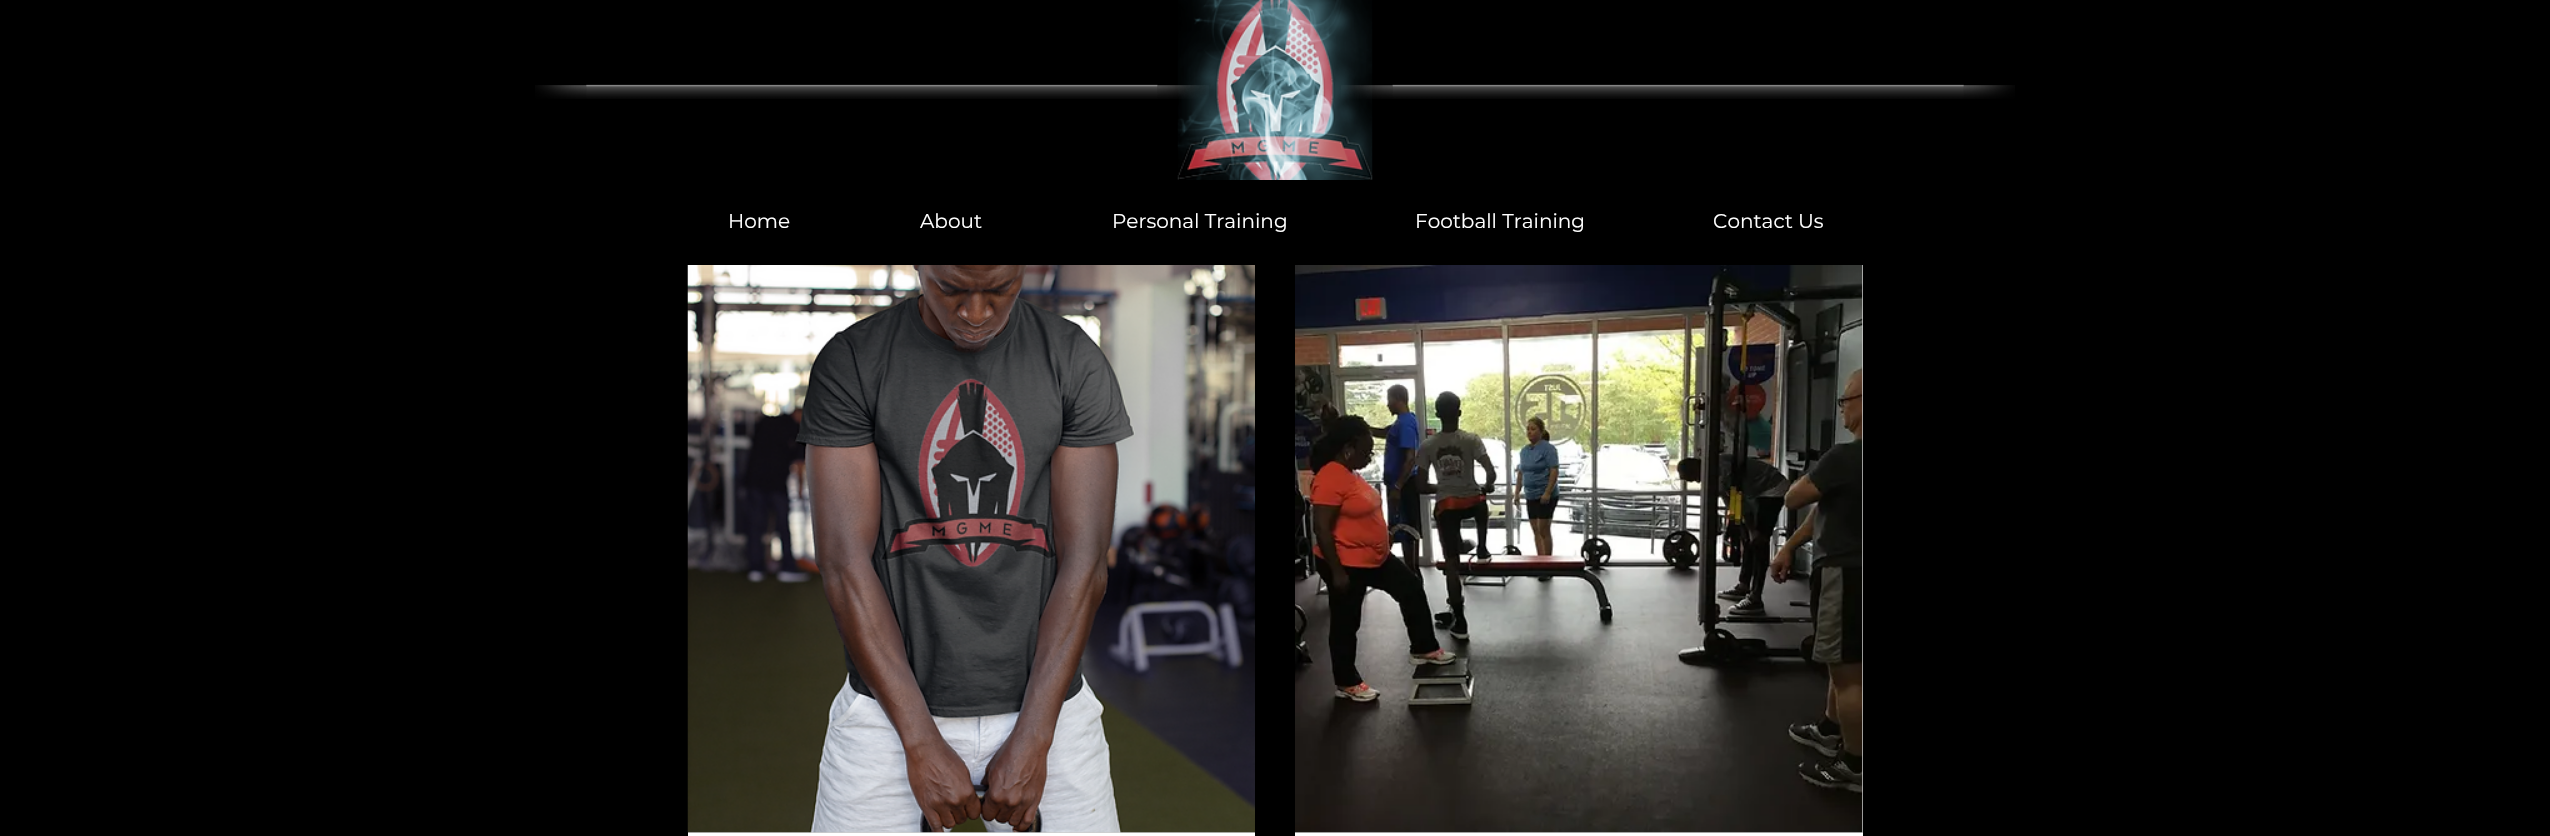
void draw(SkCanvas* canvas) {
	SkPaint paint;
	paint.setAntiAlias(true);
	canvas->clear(0xff000000);
	canvas->drawImageRect(SkImages::DeferredFromEncodedData(SkData::MakeFromFileName("img1.png")), SkRect::MakeXYWH(586, 84, 572, 15), SkSamplingOptions());
	canvas->drawImageRect(SkImages::DeferredFromEncodedData(SkData::MakeFromFileName("img2.png")), SkRect::MakeXYWH(535, 85, 52, 14), SkSamplingOptions());
	canvas->drawImageRect(SkImages::DeferredFromEncodedData(SkData::MakeFromFileName("img3.png")), SkRect::MakeXYWH(1157, 85, 52, 14), SkSamplingOptions());
	canvas->drawImageRect(SkImages::DeferredFromEncodedData(SkData::MakeFromFileName("img4.png")), SkRect::MakeXYWH(1177, 0, 196, 180), SkSamplingOptions());
	canvas->drawImageRect(SkImages::DeferredFromEncodedData(SkData::MakeFromFileName("img5.png")), SkRect::MakeXYWH(1392, 84, 572, 15), SkSamplingOptions());
	canvas->drawImageRect(SkImages::DeferredFromEncodedData(SkData::MakeFromFileName("img6.png")), SkRect::MakeXYWH(1341, 85, 52, 14), SkSamplingOptions());
	canvas->drawImageRect(SkImages::DeferredFromEncodedData(SkData::MakeFromFileName("img7.png")), SkRect::MakeXYWH(1963, 85, 52, 14), SkSamplingOptions());
	SkFont f1(fontMgr->matchFamilyStyle("Montserrat", SkFontStyle::Normal()), 20);
	f1.setSubpixel(true);
	paint.setColor(0xffffffff);
	canvas->drawString("Home", 728, 228, f1, paint);
	canvas->drawString("About", 920, 228, f1, paint);
	canvas->drawString("Personal Training", 1112, 228, f1, paint);
	canvas->drawString("Football Training", 1415, 228, f1, paint);
	canvas->drawString("Contact Us", 1713, 228, f1, paint);
	canvas->drawRect(SkRect::MakeXYWH(688, 833, 567, 3), paint);
	paint.setColor(0xffcdcdcd);
	canvas->drawRect(SkRect::MakeXYWH(688, 832, 567, 1), paint);
	canvas->drawImageRect(SkImages::DeferredFromEncodedData(SkData::MakeFromFileName("img8.png")), SkRect::MakeXYWH(687, 265, 568, 568), SkSamplingOptions());
	paint.setColor(0xffffffff);
	canvas->drawRect(SkRect::MakeXYWH(1295, 833, 568, 3), paint);
	paint.setColor(0xffcdcdcd);
	canvas->drawRect(SkRect::MakeXYWH(1295, 265, 568, 568), paint);
	canvas->drawImageRect(SkImages::DeferredFromEncodedData(SkData::MakeFromFileName("img9.png")), SkRect::MakeXYWH(1295, 265, 568, 568), SkSamplingOptions());
}
